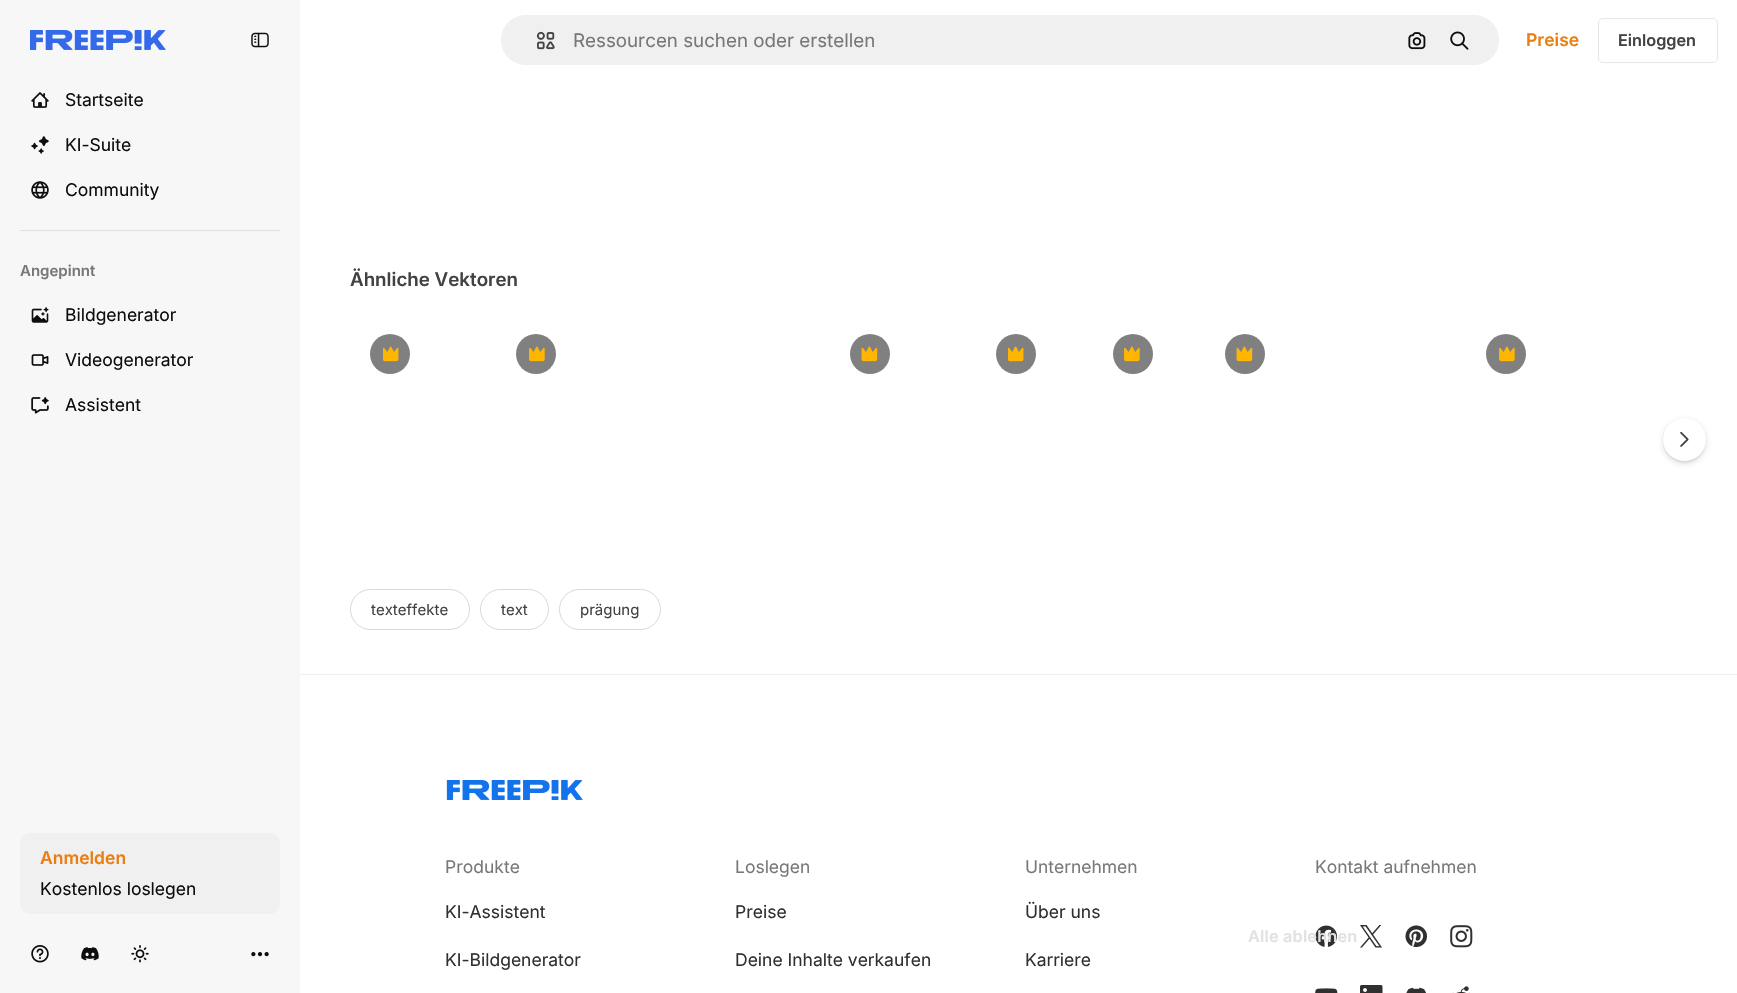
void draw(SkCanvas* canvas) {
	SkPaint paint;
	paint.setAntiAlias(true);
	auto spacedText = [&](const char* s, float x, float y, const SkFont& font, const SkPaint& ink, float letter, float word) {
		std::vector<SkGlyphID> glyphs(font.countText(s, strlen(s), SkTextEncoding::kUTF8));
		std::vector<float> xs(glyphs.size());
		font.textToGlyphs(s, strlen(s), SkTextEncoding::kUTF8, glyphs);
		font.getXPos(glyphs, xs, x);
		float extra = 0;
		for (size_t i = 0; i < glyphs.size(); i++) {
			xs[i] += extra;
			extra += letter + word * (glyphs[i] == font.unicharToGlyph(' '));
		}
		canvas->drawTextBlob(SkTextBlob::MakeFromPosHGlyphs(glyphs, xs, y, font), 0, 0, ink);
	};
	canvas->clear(0xffffffff);
	paint.setColor(0xfff7f7f7);
	canvas->drawRect(SkRect::MakeXYWH(0, 0, 300, 993), paint);
	canvas->drawImageRect(SkImages::DeferredFromEncodedData(SkData::MakeFromFileName("img1.png")), SkRect::MakeXYWH(30, 30, 136, 20), SkSamplingOptions());
	canvas->drawImageRect(SkImages::DeferredFromEncodedData(SkData::MakeFromFileName("img2.png")), SkRect::MakeXYWH(251, 32, 18, 16), SkSamplingOptions());
	canvas->drawImageRect(SkImages::DeferredFromEncodedData(SkData::MakeFromFileName("img3.png")), SkRect::MakeXYWH(31, 92, 18, 16), SkSamplingOptions());
	SkFont f1(fontMgr->matchFamilyStyle("Inter", SkFontStyle::Normal()), 17.5);
	f1.setSubpixel(true);
	paint.setColor(0xff0d0d0d);
	canvas->drawString("Startseite", 65, 106, f1, paint);
	canvas->drawImageRect(SkImages::DeferredFromEncodedData(SkData::MakeFromFileName("img4.png")), SkRect::MakeXYWH(31, 136, 18, 18), SkSamplingOptions());
	canvas->drawString("KI-Suite", 65, 151, f1, paint);
	canvas->drawImageRect(SkImages::DeferredFromEncodedData(SkData::MakeFromFileName("img5.png")), SkRect::MakeXYWH(31, 181, 18, 18), SkSamplingOptions());
	canvas->drawString("Community", 65, 196, f1, paint);
	paint.setColor(0xffe0e0e0);
	canvas->drawRect(SkRect::MakeXYWH(20, 230, 260, 1), paint);
	SkFont f2(fontMgr->matchFamilyStyle("Inter", SkFontStyle(600, SkFontStyle::kNormal_Width, SkFontStyle::kUpright_Slant)), 15);
	f2.setSubpixel(true);
	paint.setColor(0xff787878);
	canvas->drawString("Angepinnt", 20, 276, f2, paint);
	canvas->drawImageRect(SkImages::DeferredFromEncodedData(SkData::MakeFromFileName("img6.png")), SkRect::MakeXYWH(31, 307, 18, 16), SkSamplingOptions());
	paint.setColor(0xff0d0d0d);
	canvas->drawString("Bildgenerator", 65, 321, f1, paint);
	canvas->drawImageRect(SkImages::DeferredFromEncodedData(SkData::MakeFromFileName("img7.png")), SkRect::MakeXYWH(31, 354, 18, 12), SkSamplingOptions());
	canvas->drawString("Videogenerator", 65, 366, f1, paint);
	canvas->drawImageRect(SkImages::DeferredFromEncodedData(SkData::MakeFromFileName("img8.png")), SkRect::MakeXYWH(31, 397, 18, 17), SkSamplingOptions());
	canvas->drawString("Assistent", 65, 411, f1, paint);
	paint.setColor(0xfff0f0f0);
	canvas->drawRoundRect(SkRect::MakeXYWH(20, 833, 260, 81), 10, 10, paint);
	SkFont f3(fontMgr->matchFamilyStyle("Inter", SkFontStyle(600, SkFontStyle::kNormal_Width, SkFontStyle::kUpright_Slant)), 17.5);
	f3.setSubpixel(true);
	paint.setColor(0xffea7e11);
	canvas->drawString("Anmelden", 40, 864, f3, paint);
	paint.setColor(0xff0d0d0d);
	canvas->drawString("Kostenlos loslegen", 40, 895, f1, paint);
	canvas->drawImageRect(SkImages::DeferredFromEncodedData(SkData::MakeFromFileName("img9.png")), SkRect::MakeXYWH(31, 945, 18, 18), SkSamplingOptions());
	canvas->drawImageRect(SkImages::DeferredFromEncodedData(SkData::MakeFromFileName("img10.png")), SkRect::MakeXYWH(81, 947, 18, 14), SkSamplingOptions());
	canvas->drawImageRect(SkImages::DeferredFromEncodedData(SkData::MakeFromFileName("img11.png")), SkRect::MakeXYWH(131, 945, 18, 18), SkSamplingOptions());
	canvas->drawImageRect(SkImages::DeferredFromEncodedData(SkData::MakeFromFileName("img12.png")), SkRect::MakeXYWH(251, 952, 18, 5), SkSamplingOptions());
	paint.setColor(0xfff0f0f0);
	canvas->drawRoundRect(SkRect::MakeXYWH(500.5, 14.5, 999, 51), 25.5, 25.5, paint);
	paint.setStroke(true);
	paint.setStrokeWidth(1);
	paint.setColor(0xffffffff);
	canvas->drawRoundRect(SkRect::MakeXYWH(500.5, 14.5, 999, 51), 25.5, 25.5, paint);
	canvas->drawImageRect(SkImages::DeferredFromEncodedData(SkData::MakeFromFileName("img13.png")), SkRect::MakeXYWH(536, 31, 19, 19), SkSamplingOptions());
	SkFont f4(fontMgr->matchFamilyStyle("Inter", SkFontStyle::Normal()), 18.75);
	f4.setSubpixel(true);
	paint.setStroke(false);
	paint.setColor(0xff787878);
	canvas->drawString("Ressourcen suchen oder erstellen", 573, 47, f4, paint);
	canvas->drawImageRect(SkImages::DeferredFromEncodedData(SkData::MakeFromFileName("img14.png")), SkRect::MakeXYWH(1408, 32, 18, 18), SkSamplingOptions());
	canvas->drawImageRect(SkImages::DeferredFromEncodedData(SkData::MakeFromFileName("img15.png")), SkRect::MakeXYWH(1450, 31, 19, 19), SkSamplingOptions());
	paint.setColor(0xffea7e11);
	canvas->drawString("Preise", 1526, 46, f3, paint);
	paint.setStroke(true);
	paint.setColor(0xffe7e7e7);
	canvas->drawRoundRect(SkRect::MakeXYWH(1598.5, 18.5, 119, 44), 4.5, 4.5, paint);
	SkFont f5(fontMgr->matchFamilyStyle("Inter", SkFontStyle(600, SkFontStyle::kNormal_Width, SkFontStyle::kUpright_Slant)), 16.25);
	f5.setSubpixel(true);
	paint.setStroke(false);
	paint.setColor(0xff424242);
	canvas->drawString("Einloggen", 1618, 46, f5, paint);
	SkFont f6(fontMgr->matchFamilyStyle("Inter", SkFontStyle(600, SkFontStyle::kNormal_Width, SkFontStyle::kUpright_Slant)), 18.75);
	f6.setSubpixel(true);
	canvas->drawString("Ähnliche Vektoren", 350, 286, f6, paint);
	paint.setColor(0xff808080);
	canvas->drawCircle(390, 354, 20, paint);
	canvas->drawImageRect(SkImages::DeferredFromEncodedData(SkData::MakeFromFileName("img16.png")), SkRect::MakeXYWH(383, 346, 16, 16), SkSamplingOptions());
	canvas->drawCircle(536, 354, 20, paint);
	canvas->drawImageRect(SkImages::DeferredFromEncodedData(SkData::MakeFromFileName("img17.png")), SkRect::MakeXYWH(529, 346, 16, 16), SkSamplingOptions());
	canvas->drawCircle(870, 354, 20, paint);
	canvas->drawImageRect(SkImages::DeferredFromEncodedData(SkData::MakeFromFileName("img18.png")), SkRect::MakeXYWH(861, 346, 17, 16), SkSamplingOptions());
	canvas->drawCircle(1016, 354, 20, paint);
	canvas->drawImageRect(SkImages::DeferredFromEncodedData(SkData::MakeFromFileName("img16.png")), SkRect::MakeXYWH(1008, 346, 16, 16), SkSamplingOptions());
	canvas->drawCircle(1133, 354, 20, paint);
	canvas->drawImageRect(SkImages::DeferredFromEncodedData(SkData::MakeFromFileName("img17.png")), SkRect::MakeXYWH(1124, 346, 16, 16), SkSamplingOptions());
	canvas->drawCircle(1245, 354, 20, paint);
	canvas->drawImageRect(SkImages::DeferredFromEncodedData(SkData::MakeFromFileName("img18.png")), SkRect::MakeXYWH(1236, 346, 17, 16), SkSamplingOptions());
	canvas->drawCircle(1506, 354, 20, paint);
	canvas->drawImageRect(SkImages::DeferredFromEncodedData(SkData::MakeFromFileName("img17.png")), SkRect::MakeXYWH(1499, 346, 16, 16), SkSamplingOptions());
	paint.setColor(0x26374957);
	paint.setMaskFilter(SkMaskFilter::MakeBlur(kNormal_SkBlurStyle, 3));
	canvas->drawRoundRect(SkRect::MakeXYWH(1663, 420, 43, 44), 21.5, 21.5, paint);
	paint.setMaskFilter(nullptr);
	paint.setColor(0x1a374957);
	paint.setMaskFilter(SkMaskFilter::MakeBlur(kNormal_SkBlurStyle, 1));
	canvas->drawRoundRect(SkRect::MakeXYWH(1663, 419, 43, 44), 21.5, 21.5, paint);
	paint.setMaskFilter(nullptr);
	paint.setColor(0xffffffff);
	canvas->drawCircle(1684.5, 439.5, 21.5, paint);
	canvas->drawImageRect(SkImages::DeferredFromEncodedData(SkData::MakeFromFileName("img19.png")), SkRect::MakeXYWH(1680, 431, 9, 16), SkSamplingOptions());
	paint.setStroke(true);
	paint.setColor(0xffd8d8d8);
	canvas->drawRoundRect(SkRect::MakeXYWH(350.5, 589.5, 119, 40), 20, 20, paint);
	SkFont f7(fontMgr->matchFamilyStyle("Inter", SkFontStyle::Normal()), 15);
	f7.setSubpixel(true);
	paint.setStroke(false);
	paint.setColor(0xff424242);
	canvas->drawString("texteffekte", 371, 615, f7, paint);
	paint.setStroke(true);
	paint.setColor(0xffd8d8d8);
	canvas->drawRoundRect(SkRect::MakeXYWH(480.5, 589.5, 68, 40), 20, 20, paint);
	paint.setStroke(false);
	paint.setColor(0xff424242);
	canvas->drawString("text", 501, 615, f7, paint);
	paint.setStroke(true);
	paint.setColor(0xffd8d8d8);
	canvas->drawRoundRect(SkRect::MakeXYWH(559.5, 589.5, 101, 40), 20, 20, paint);
	paint.setStroke(false);
	paint.setColor(0xff424242);
	canvas->drawString("prägung", 580, 615, f7, paint);
	paint.setColor(0xfff0f0f0);
	canvas->drawRect(SkRect::MakeXYWH(300, 674, 1437, 1), paint);
	canvas->drawImageRect(SkImages::DeferredFromEncodedData(SkData::MakeFromFileName("img20.png")), SkRect::MakeXYWH(446, 780, 137, 20), SkSamplingOptions());
	paint.setColor(0xff787878);
	canvas->drawString("Produkte", 445, 873, f1, paint);
	paint.setColor(0xff303030);
	canvas->drawString("KI-Assistent", 445, 918, f1, paint);
	canvas->drawString("KI-Bildgenerator", 445, 966, f1, paint);
	paint.setColor(0xff787878);
	canvas->drawString("Loslegen", 735, 873, f1, paint);
	paint.setColor(0xff303030);
	canvas->drawString("Preise", 735, 918, f1, paint);
	canvas->drawString("Deine Inhalte verkaufen", 735, 966, f1, paint);
	paint.setColor(0xff787878);
	canvas->drawString("Unternehmen", 1025, 873, f1, paint);
	paint.setColor(0xff303030);
	canvas->drawString("Über uns", 1025, 918, f1, paint);
	canvas->drawString("Karriere", 1025, 966, f1, paint);
	paint.setColor(0xff787878);
	canvas->drawString("Kontakt aufnehmen", 1315, 873, f1, paint);
	canvas->drawImageRect(SkImages::DeferredFromEncodedData(SkData::MakeFromFileName("img21.png")), SkRect::MakeXYWH(1315, 925, 22, 22), SkSamplingOptions());
	canvas->drawImageRect(SkImages::DeferredFromEncodedData(SkData::MakeFromFileName("img22.png")), SkRect::MakeXYWH(1360, 925, 22, 23), SkSamplingOptions());
	canvas->drawImageRect(SkImages::DeferredFromEncodedData(SkData::MakeFromFileName("img23.png")), SkRect::MakeXYWH(1405, 925, 22, 22), SkSamplingOptions());
	canvas->drawImageRect(SkImages::DeferredFromEncodedData(SkData::MakeFromFileName("img24.png")), SkRect::MakeXYWH(1450, 925, 23, 23), SkSamplingOptions());
	canvas->drawImageRect(SkImages::DeferredFromEncodedData(SkData::MakeFromFileName("img25.png")), SkRect::MakeXYWH(1315, 988, 23, 5), SkSamplingOptions());
	canvas->drawImageRect(SkImages::DeferredFromEncodedData(SkData::MakeFromFileName("img26.png")), SkRect::MakeXYWH(1360, 985, 23, 8), SkSamplingOptions());
	canvas->drawImageRect(SkImages::DeferredFromEncodedData(SkData::MakeFromFileName("img27.png")), SkRect::MakeXYWH(1406, 987, 20, 6), SkSamplingOptions());
	canvas->drawImageRect(SkImages::DeferredFromEncodedData(SkData::MakeFromFileName("img28.png")), SkRect::MakeXYWH(1452, 986, 18, 7), SkSamplingOptions());
	paint.setColor(0xffe2e2e2);
	spacedText("Alle ablehnen", 1248, 942, f5, paint, 0.2, 0);
}
